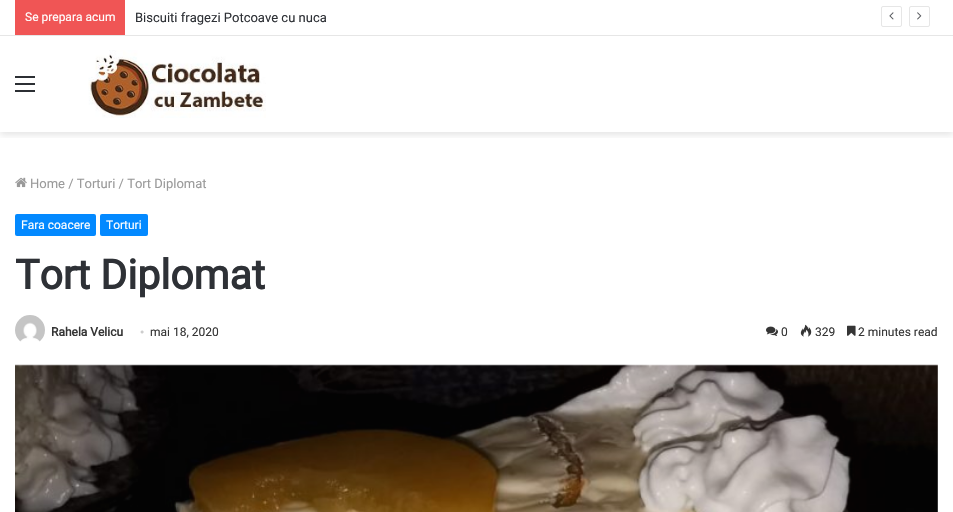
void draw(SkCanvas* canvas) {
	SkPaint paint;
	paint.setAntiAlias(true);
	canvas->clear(0xffffffff);
	canvas->save();
	canvas->clipRect(SkRect::MakeXYWH(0, 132, 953, 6));
	paint.setColor(0x1a000000);
	paint.setMaskFilter(SkMaskFilter::MakeBlur(kNormal_SkBlurStyle, 3.5));
	canvas->drawRect(SkRect::MakeXYWH(0, 39, 953, 96), paint);
	paint.setMaskFilter(nullptr);
	canvas->restore();
	paint.setColor(0xffe6e6e6);
	canvas->drawRect(SkRect::MakeXYWH(0, 35, 953, 1), paint);
	paint.setColor(0xfff05555);
	canvas->drawRect(SkRect::MakeXYWH(15, 0, 110, 35), paint);
	SkFont f1(fontMgr->matchFamilyStyle("Roboto", SkFontStyle::Normal()), 12);
	f1.setSubpixel(true);
	paint.setColor(0xffffffff);
	canvas->drawString("Se prepara acum", 25, 21, f1, paint);
	SkFont f2(fontMgr->matchFamilyStyle("Roboto", SkFontStyle::Normal()), 13);
	f2.setSubpixel(true);
	paint.setColor(0xff2e3136);
	canvas->drawString("Biscuiti fragezi Potcoave cu nuca", 135, 22, f2, paint);
	paint.setStroke(true);
	paint.setStrokeWidth(1);
	paint.setColor(0xffe6e6e6);
	canvas->drawRoundRect(SkRect::MakeXYWH(881.5, 6.5, 20, 20), 1.5, 1.5, paint);
	canvas->drawImageRect(SkImages::DeferredFromEncodedData(SkData::MakeFromFileName("img1.png")), SkRect::MakeXYWH(889, 12, 5, 8), SkSamplingOptions());
	canvas->drawRoundRect(SkRect::MakeXYWH(909.5, 6.5, 20, 20), 1.5, 1.5, paint);
	canvas->drawImageRect(SkImages::DeferredFromEncodedData(SkData::MakeFromFileName("img2.png")), SkRect::MakeXYWH(917, 12, 5, 8), SkSamplingOptions());
	paint.setStroke(false);
	paint.setColor(0xff2c2f34);
	canvas->drawRect(SkRect::MakeXYWH(15, 83, 20, 2), paint);
	canvas->drawRect(SkRect::MakeXYWH(15, 76, 20, 2), paint);
	canvas->drawRect(SkRect::MakeXYWH(15, 90, 20, 2), paint);
	canvas->drawImageRect(SkImages::DeferredFromEncodedData(SkData::MakeFromFileName("img3.png")), SkRect::MakeXYWH(88, 50, 178, 68), SkSamplingOptions());
	canvas->drawImageRect(SkImages::DeferredFromEncodedData(SkData::MakeFromFileName("img4.png")), SkRect::MakeXYWH(15, 177, 12, 11), SkSamplingOptions());
	paint.setColor(0xff9a9a9a);
	canvas->drawString("Home / Torturi / Tort Diplomat", 30, 188, f2, paint);
	paint.setColor(0xff0389ff);
	canvas->drawRoundRect(SkRect::MakeXYWH(15, 214, 81, 22), 2, 2, paint);
	paint.setColor(0xffffffff);
	canvas->drawString("Fara coacere", 21, 229, f1, paint);
	paint.setColor(0xff0389ff);
	canvas->drawRoundRect(SkRect::MakeXYWH(100, 214, 48, 22), 2, 2, paint);
	paint.setColor(0xffffffff);
	canvas->drawString("Torturi", 106, 229, f1, paint);
	SkFont f3(fontMgr->matchFamilyStyle("Roboto", SkFontStyle::Bold()), 41);
	f3.setSubpixel(true);
	paint.setColor(0xff2e3136);
	canvas->drawString("Tort Diplomat", 15, 289, f3, paint);
	canvas->drawImageRect(SkImages::DeferredFromEncodedData(SkData::MakeFromFileName("img5.png")), SkRect::MakeXYWH(15, 315, 30, 27), SkSamplingOptions());
	SkFont f4(fontMgr->matchFamilyStyle("Roboto", SkFontStyle::Bold()), 12);
	f4.setSubpixel(true);
	paint.setColor(0xff353535);
	canvas->drawString("Rahela Velicu", 51, 336, f4, paint);
	SkFont f5(fontMgr->matchFamilyStyle("Liberation Serif", SkFontStyle::Normal()), 12);
	f5.setSubpixel(true);
	paint.setColor(0xffcdcdcd);
	canvas->drawString("•", 140, 336, f5, paint);
	paint.setColor(0xff353535);
	canvas->drawString("mai 18, 2020", 150, 336, f1, paint);
	canvas->drawImageRect(SkImages::DeferredFromEncodedData(SkData::MakeFromFileName("img6.png")), SkRect::MakeXYWH(766, 326, 12, 10), SkSamplingOptions());
	canvas->drawString("0", 781, 336, f1, paint);
	canvas->drawImageRect(SkImages::DeferredFromEncodedData(SkData::MakeFromFileName("img7.png")), SkRect::MakeXYWH(800, 324, 12, 13), SkSamplingOptions());
	canvas->drawString("329", 815, 336, f1, paint);
	canvas->drawImageRect(SkImages::DeferredFromEncodedData(SkData::MakeFromFileName("img8.png")), SkRect::MakeXYWH(847, 325, 9, 11), SkSamplingOptions());
	canvas->drawString("2 minutes read", 858, 336, f1, paint);
	canvas->drawImageRect(SkImages::DeferredFromEncodedData(SkData::MakeFromFileName("img9.png")), SkRect::MakeXYWH(15, 364, 923, 148), SkSamplingOptions());
}
